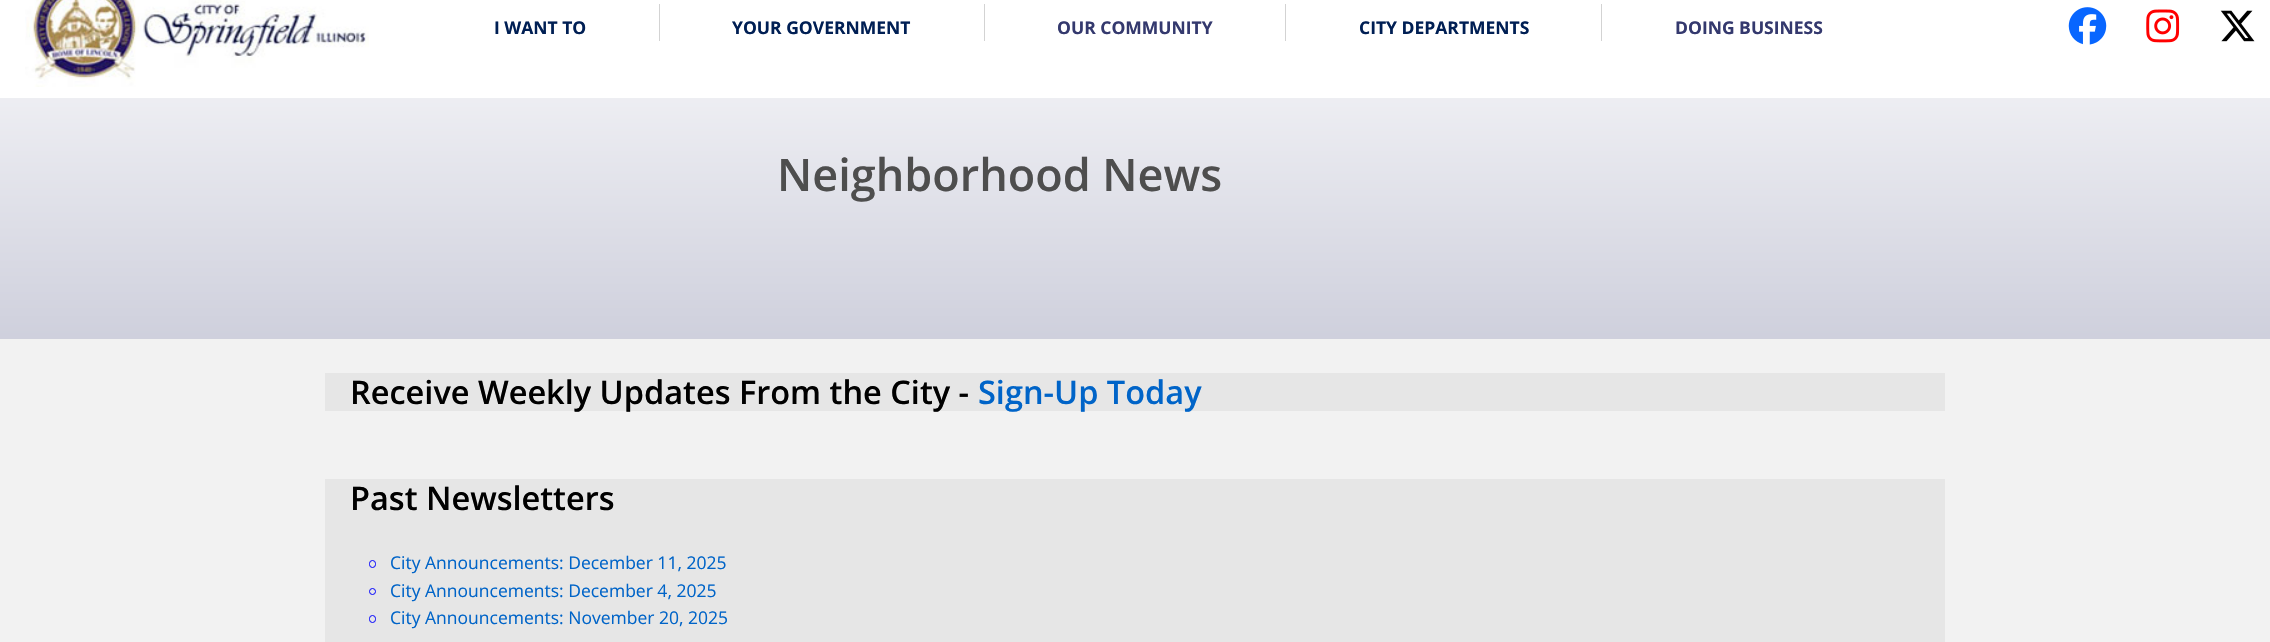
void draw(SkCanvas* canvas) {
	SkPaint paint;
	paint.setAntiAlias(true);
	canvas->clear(0xffffffff);
	{
		const SkColor colors[] = {0xff34396e, 0xffffffff};
		const float stops[] = {0, 1};
		const SkPoint ends[] = {{1135, 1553}, {1135, -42}};
		paint.setShader(SkGradientShader::MakeLinear(ends, colors, stops, 2, SkTileMode::kClamp));
		paint.setAlpha(255);
	}
	canvas->drawRect(SkRect::MakeXYWH(0, 98, 2270, 241), paint);
	canvas->drawImageRect(SkImages::DeferredFromEncodedData(SkData::MakeFromFileName("img1.png")), SkRect::MakeXYWH(25, 0, 344, 87), SkSamplingOptions());
	SkFont f1(fontMgr->matchFamilyStyle("Open Sans", SkFontStyle::Bold()), 17.5);
	f1.setSubpixel(true);
	paint.setShader(nullptr);
	paint.setColor(0xff001f54);
	canvas->drawString("I WANT TO", 494, 34, f1, paint);
	paint.setColor(0xffd3d3d3);
	canvas->drawRect(SkRect::MakeXYWH(659, 4, 1, 37), paint);
	paint.setColor(0xff001f54);
	canvas->drawString("YOUR GOVERNMENT", 732, 34, f1, paint);
	paint.setColor(0xffd3d3d3);
	canvas->drawRect(SkRect::MakeXYWH(984, 4, 1, 37), paint);
	paint.setColor(0xff34396e);
	canvas->drawString("OUR COMMUNITY", 1057, 34, f1, paint);
	paint.setColor(0xffd3d3d3);
	canvas->drawRect(SkRect::MakeXYWH(1285, 4, 1, 37), paint);
	paint.setColor(0xff001f54);
	canvas->drawString("CITY DEPARTMENTS", 1359, 34, f1, paint);
	paint.setColor(0xffd3d3d3);
	canvas->drawRect(SkRect::MakeXYWH(1601, 4, 1, 37), paint);
	paint.setColor(0xff34396e);
	canvas->drawString("DOING BUSINESS", 1675, 34, f1, paint);
	canvas->drawImageRect(SkImages::DeferredFromEncodedData(SkData::MakeFromFileName("img2.png")), SkRect::MakeXYWH(2068, 7, 39, 38), SkSamplingOptions());
	canvas->drawImageRect(SkImages::DeferredFromEncodedData(SkData::MakeFromFileName("img3.png")), SkRect::MakeXYWH(2146, 9, 34, 34), SkSamplingOptions());
	canvas->drawImageRect(SkImages::DeferredFromEncodedData(SkData::MakeFromFileName("img4.png")), SkRect::MakeXYWH(2220, 10, 35, 32), SkSamplingOptions());
	SkFont f2(fontMgr->matchFamilyStyle("Open Sans", SkFontStyle(600, SkFontStyle::kNormal_Width, SkFontStyle::kUpright_Slant)), 45);
	f2.setSubpixel(true);
	paint.setColor(0xff4e4e4e);
	canvas->drawString("Neighborhood News", 777, 191, f2, paint);
	paint.setColor(0xfff2f2f2);
	canvas->drawRect(SkRect::MakeXYWH(0, 339, 2270, 303), paint);
	paint.setColor(0xffe6e6e6);
	canvas->drawRect(SkRect::MakeXYWH(325, 373, 1620, 38), paint);
	SkFont f3(fontMgr->matchFamilyStyle("Open Sans", SkFontStyle(600, SkFontStyle::kNormal_Width, SkFontStyle::kUpright_Slant)), 32.5);
	f3.setSubpixel(true);
	paint.setColor(0xff000000);
	canvas->drawString("Receive Weekly Updates From the City -", 350, 404, f3, paint);
	paint.setColor(0xff0064c8);
	canvas->drawString("Sign-Up Today", 978, 404, f3, paint);
	paint.setColor(0xffe6e6e6);
	canvas->drawRect(SkRect::MakeXYWH(325, 479, 1620, 163), paint);
	paint.setColor(0xff000000);
	canvas->drawString("Past Newsletters", 350, 510, f3, paint);
	paint.setStroke(true);
	paint.setStrokeWidth(1);
	paint.setColor(0xff0000ff);
	canvas->drawRoundRect(SkRect::MakeXYWH(369.5, 560.5, 6, 7), 3, 3, paint);
	SkFont f4(fontMgr->matchFamilyStyle("Open Sans", SkFontStyle::Normal()), 17.5);
	f4.setSubpixel(true);
	paint.setStroke(false);
	paint.setColor(0xff0064c8);
	canvas->drawString("City Announcements: December 11, 2025", 390, 569, f4, paint);
	paint.setStroke(true);
	paint.setColor(0xff0000ff);
	canvas->drawCircle(372.5, 591.5, 3, paint);
	paint.setStroke(false);
	paint.setColor(0xff0064c8);
	canvas->drawString("City Announcements: December 4, 2025", 390, 597, f4, paint);
	paint.setStroke(true);
	paint.setColor(0xff0000ff);
	canvas->drawRoundRect(SkRect::MakeXYWH(369.5, 615.5, 6, 7), 3, 3, paint);
	paint.setStroke(false);
	paint.setColor(0xff0064c8);
	canvas->drawString("City Announcements: November 20, 2025", 390, 624, f4, paint);
}
